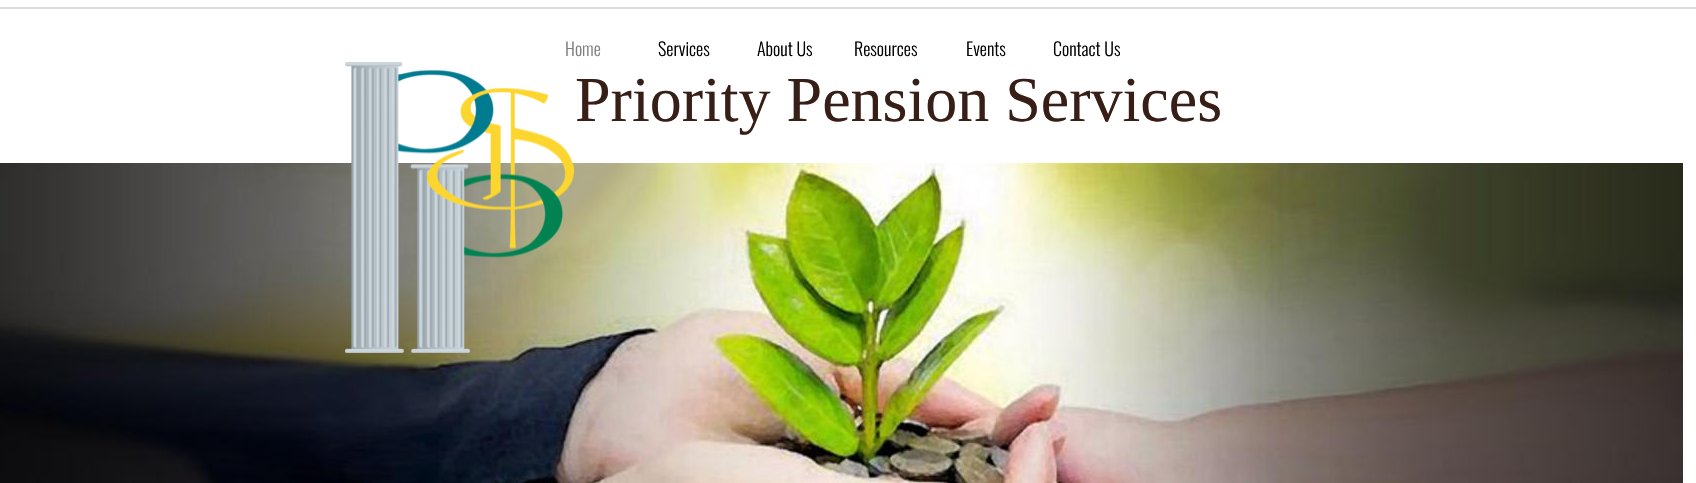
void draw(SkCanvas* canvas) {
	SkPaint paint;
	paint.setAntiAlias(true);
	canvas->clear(0xffffffff);
	paint.setColor(0xffdddddd);
	canvas->drawRect(SkRect::MakeXYWH(0, 7, 1696, 2), paint);
	SkFont f1(fontMgr->matchFamilyStyle("Oswald", SkFontStyle(300, SkFontStyle::kNormal_Width, SkFontStyle::kUpright_Slant)), 18);
	f1.setSubpixel(true);
	paint.setColor(0xff7f7f7f);
	canvas->drawString("Home", 565, 56, f1, paint);
	paint.setColor(0xff000000);
	canvas->drawString("Services", 658, 56, f1, paint);
	canvas->drawString("About Us", 757, 56, f1, paint);
	canvas->drawString("Resources", 854, 56, f1, paint);
	canvas->drawString("Events", 966, 56, f1, paint);
	canvas->drawString("Contact Us", 1053, 56, f1, paint);
	canvas->drawImageRect(SkImages::DeferredFromEncodedData(SkData::MakeFromFileName("img2.png")), SkRect::MakeXYWH(0, 163, 1683, 320), SkSamplingOptions());
	canvas->drawImageRect(SkImages::DeferredFromEncodedData(SkData::MakeFromFileName("img1.png")), SkRect::MakeXYWH(345, 62, 229, 291), SkSamplingOptions());
	SkFont f2(fontMgr->matchFamilyStyle("Liberation Serif", SkFontStyle::Normal()), 64);
	f2.setSubpixel(true);
	paint.setColor(0xff371e16);
	canvas->drawString("Priority Pension Services", 575, 121, f2, paint);
}
